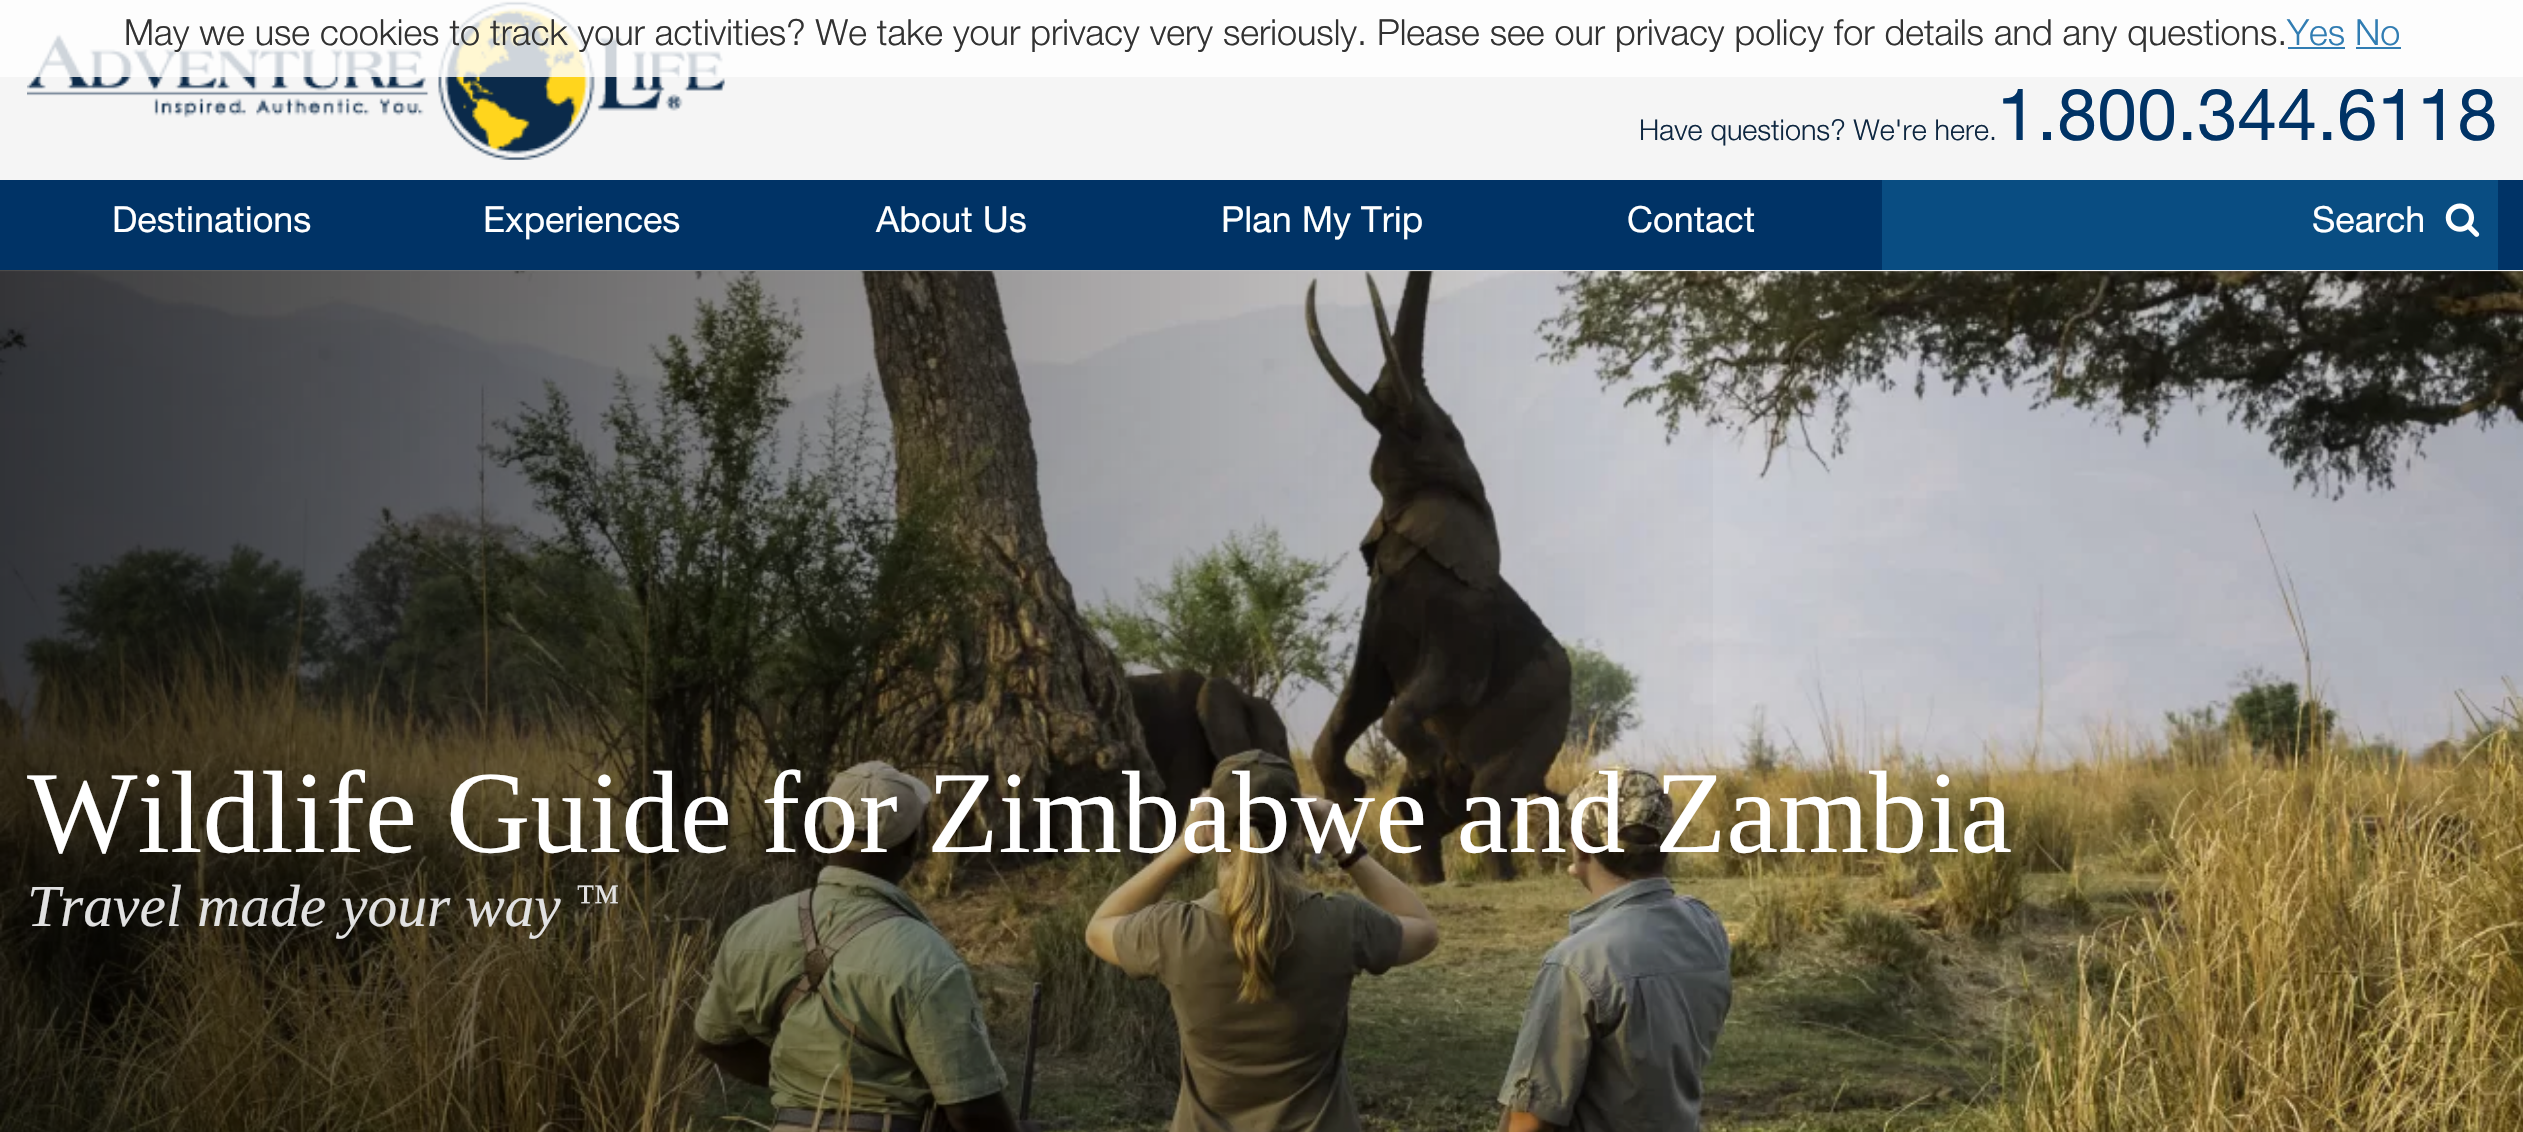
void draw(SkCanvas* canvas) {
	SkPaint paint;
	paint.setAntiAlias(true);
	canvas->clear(0xfff5f5f5);
	canvas->drawImageRect(SkImages::DeferredFromEncodedData(SkData::MakeFromFileName("img1.png")), SkRect::MakeXYWH(27, 1, 698, 159), SkSamplingOptions());
	paint.setColor(0xccffffff);
	canvas->drawRect(SkRect::MakeXYWH(0, 0, 2523, 77), paint);
	SkFont f1(fontMgr->matchFamilyStyle("Helvetica Neue", SkFontStyle(300, SkFontStyle::kNormal_Width, SkFontStyle::kUpright_Slant)), 36);
	f1.setSubpixel(true);
	paint.setColor(0xff323232);
	canvas->drawString("May we use cookies to track your activities? We take your privacy very seriously. Please see our privacy policy for details and any questions.", 124, 45, f1, paint);
	paint.setColor(0xff317db3);
	canvas->drawString("Yes No", 2287, 45, f1, paint);
	canvas->drawRect(SkRect::MakeXYWH(2288, 47, 57, 2), paint);
	canvas->drawRect(SkRect::MakeXYWH(2356, 47, 45, 2), paint);
	SkFont f2(fontMgr->matchFamilyStyle("Helvetica Neue", SkFontStyle(300, SkFontStyle::kNormal_Width, SkFontStyle::kUpright_Slant)), 28.75);
	f2.setSubpixel(true);
	paint.setColor(0xff0e2741);
	canvas->drawString("Have questions? We're here.", 1639, 140, f2, paint);
	SkFont f3(fontMgr->matchFamilyStyle("Helvetica Neue", SkFontStyle::Normal()), 72);
	f3.setSubpixel(true);
	paint.setColor(0xff003366);
	canvas->drawString("1.800.344.6118", 1997, 140, f3, paint);
	canvas->drawRect(SkRect::MakeXYWH(0, 180, 2523, 90), paint);
	SkFont f4(fontMgr->matchFamilyStyle("Helvetica Neue", SkFontStyle::Normal()), 36);
	f4.setSubpixel(true);
	paint.setColor(0xffffffff);
	canvas->drawString("Destinations", 112, 232, f4, paint);
	canvas->drawString("Experiences", 483, 232, f4, paint);
	canvas->drawString("About Us", 876, 232, f4, paint);
	canvas->drawString("Plan My Trip", 1221, 232, f4, paint);
	canvas->drawString("Contact", 1627, 232, f4, paint);
	paint.setColor(0xff094d82);
	canvas->drawRect(SkRect::MakeXYWH(1882, 180, 616, 90), paint);
	paint.setColor(0xffffffff);
	canvas->drawString("Search", 2312, 232, f4, paint);
	canvas->drawImageRect(SkImages::DeferredFromEncodedData(SkData::MakeFromFileName("img2.png")), SkRect::MakeXYWH(2445, 203, 35, 34), SkSamplingOptions());
	canvas->drawImageRect(SkImages::DeferredFromEncodedData(SkData::MakeFromFileName("img3.png")), SkRect::MakeXYWH(0, 271, 2523, 861), SkSamplingOptions());
	{
		const SkColor colors[] = {0xb3000000, 0x00000000};
		const float stops[] = {0, 0.7};
		const SkPoint ends[] = {{0, 883}, {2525, 883}};
		paint.setShader(SkGradientShader::MakeLinear(ends, colors, stops, 2, SkTileMode::kClamp));
		paint.setAlpha(255);
	}
	canvas->drawRect(SkRect::MakeXYWH(0, 270, 1713, 862), paint);
	SkFont f5(fontMgr->matchFamilyStyle("Liberation Serif", SkFontStyle::Normal()), 117);
	f5.setSubpixel(true);
	paint.setShader(nullptr);
	paint.setColor(0xffffffff);
	canvas->drawString("Wildlife Guide for Zimbabwe and Zambia", 27, 852, f5, paint);
	SkFont f6(fontMgr->matchFamilyStyle("Liberation Serif", SkFontStyle::Italic()), 59.5);
	f6.setSubpixel(true);
	paint.setColor(0xffe1e1e1);
	canvas->drawString("Travel made your way", 27, 926, f6, paint);
	SkFont f7(fontMgr->matchFamilyStyle("Liberation Serif", SkFontStyle::Italic()), 45);
	f7.setSubpixel(true);
	canvas->drawString("™", 575, 915, f7, paint);
}
